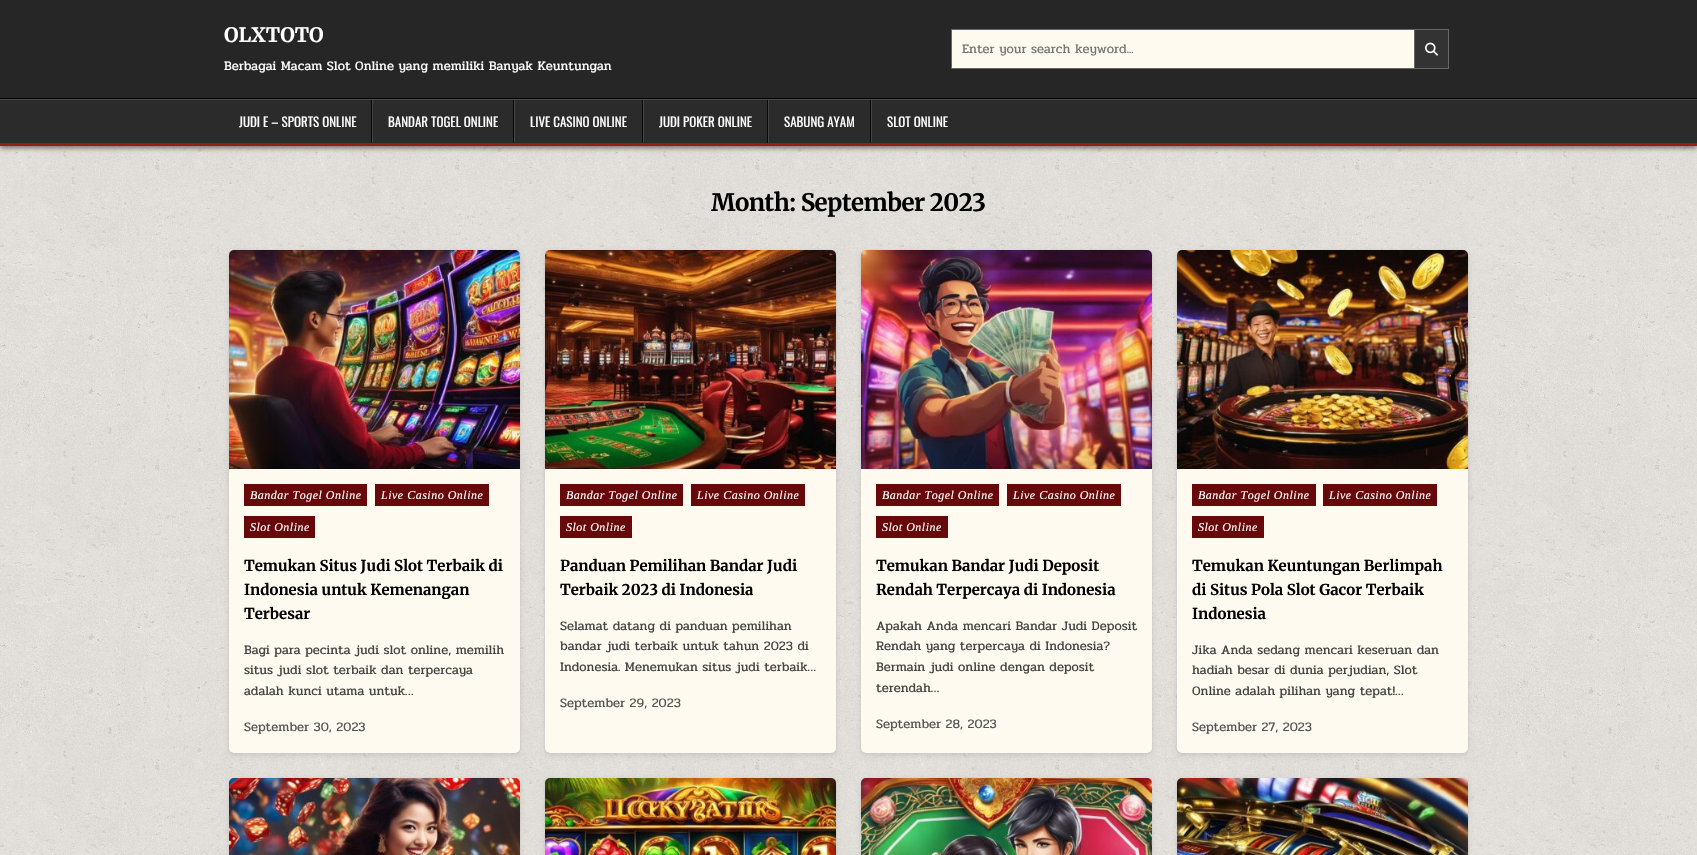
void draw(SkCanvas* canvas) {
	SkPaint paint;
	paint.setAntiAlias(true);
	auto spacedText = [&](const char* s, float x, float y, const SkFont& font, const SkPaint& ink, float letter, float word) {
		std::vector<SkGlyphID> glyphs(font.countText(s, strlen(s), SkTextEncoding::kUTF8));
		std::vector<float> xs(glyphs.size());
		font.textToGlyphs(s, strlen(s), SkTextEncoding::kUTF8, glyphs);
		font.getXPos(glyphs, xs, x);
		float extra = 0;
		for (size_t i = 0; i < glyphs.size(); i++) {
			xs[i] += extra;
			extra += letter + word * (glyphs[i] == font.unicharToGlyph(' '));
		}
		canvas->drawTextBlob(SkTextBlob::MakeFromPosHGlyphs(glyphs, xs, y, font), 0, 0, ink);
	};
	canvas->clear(0xffffffff);
	canvas->drawImageRect(SkImages::DeferredFromEncodedData(SkData::MakeFromFileName("img1.png")), SkRect::MakeXYWH(0, 146, 1697, 709), SkSamplingOptions());
	paint.setColor(0x80000000);
	paint.setMaskFilter(SkMaskFilter::MakeBlur(kNormal_SkBlurStyle, 2.5));
	canvas->drawRect(SkRect::MakeXYWH(0, 101, 1697, 47), paint);
	paint.setMaskFilter(nullptr);
	paint.setColor(0xff262626);
	canvas->drawRect(SkRect::MakeXYWH(0, 0, 1697, 98), paint);
	paint.setColor(0xff000000);
	canvas->drawRect(SkRect::MakeXYWH(0, 98, 1697, 1), paint);
	SkFont f1(fontMgr->matchFamilyStyle("Merriweather", SkFontStyle::Bold()), 20);
	f1.setSubpixel(true);
	paint.setColor(0xffffffff);
	canvas->drawString("OLXTOTO", 224, 42, f1, paint);
	SkFont f2(fontMgr->matchFamilyStyle("Pridi", SkFontStyle::Normal()), 13);
	f2.setSubpixel(true);
	canvas->drawString("Berbagai Macam Slot Online yang memiliki Banyak Keuntungan", 224, 70, f2, paint);
	paint.setColor(0xfffffaf0);
	canvas->drawRect(SkRect::MakeXYWH(952, 30, 462, 38), paint);
	paint.setStroke(true);
	paint.setStrokeWidth(1);
	paint.setColor(0xff666666);
	canvas->drawRect(SkRect::MakeXYWH(951.5, 29.5, 497, 39), paint);
	paint.setStroke(false);
	paint.setColor(0xff757575);
	canvas->drawString("Enter your search keyword...", 962, 53, f2, paint);
	paint.setColor(0xff333333);
	canvas->drawRect(SkRect::MakeXYWH(1414.5, 29.5, 34, 39), paint);
	paint.setStroke(true);
	paint.setColor(0xff666666);
	canvas->drawRect(SkRect::MakeXYWH(1414.5, 29.5, 34, 39), paint);
	canvas->drawImageRect(SkImages::DeferredFromEncodedData(SkData::MakeFromFileName("img2.png")), SkRect::MakeXYWH(1425, 42, 13, 14), SkSamplingOptions());
	paint.setStroke(false);
	paint.setColor(0xff2b2b2b);
	canvas->drawRect(SkRect::MakeXYWH(0, 100, 1697, 43), paint);
	paint.setColor(0xff4c4949);
	canvas->drawRect(SkRect::MakeXYWH(0, 99, 1697, 1), paint);
	paint.setColor(0xff951f17);
	canvas->drawRect(SkRect::MakeXYWH(0, 143, 1697, 3), paint);
	paint.setColor(0xff090909);
	canvas->drawRect(SkRect::MakeXYWH(371, 100, 1, 43), paint);
	SkFont f3(fontMgr->matchFamilyStyle("Oswald", SkFontStyle::Normal()), 13);
	f3.setSubpixel(true);
	paint.setColor(0xffffffff);
	canvas->drawString("JUDI E – SPORTS ONLINE", 239, 127, f3, paint);
	paint.setColor(0xff090909);
	canvas->drawRect(SkRect::MakeXYWH(513, 100, 1, 43), paint);
	paint.setColor(0xff444444);
	canvas->drawRect(SkRect::MakeXYWH(372, 100, 1, 43), paint);
	paint.setColor(0xffffffff);
	canvas->drawString("BANDAR TOGEL ONLINE", 388, 127, f3, paint);
	paint.setColor(0xff090909);
	canvas->drawRect(SkRect::MakeXYWH(642, 100, 1, 43), paint);
	paint.setColor(0xff444444);
	canvas->drawRect(SkRect::MakeXYWH(514, 100, 1, 43), paint);
	paint.setColor(0xffffffff);
	canvas->drawString("LIVE CASINO ONLINE", 530, 127, f3, paint);
	paint.setColor(0xff090909);
	canvas->drawRect(SkRect::MakeXYWH(767, 100, 1, 43), paint);
	paint.setColor(0xff444444);
	canvas->drawRect(SkRect::MakeXYWH(643, 100, 1, 43), paint);
	paint.setColor(0xffffffff);
	canvas->drawString("JUDI POKER ONLINE", 659, 127, f3, paint);
	paint.setColor(0xff090909);
	canvas->drawRect(SkRect::MakeXYWH(870, 100, 1, 43), paint);
	paint.setColor(0xff444444);
	canvas->drawRect(SkRect::MakeXYWH(768, 100, 1, 43), paint);
	paint.setColor(0xffffffff);
	canvas->drawString("SABUNG AYAM", 784, 127, f3, paint);
	paint.setColor(0xff444444);
	canvas->drawRect(SkRect::MakeXYWH(871, 100, 1, 43), paint);
	paint.setColor(0xffffffff);
	canvas->drawString("SLOT ONLINE", 887, 127, f3, paint);
	SkFont f4(fontMgr->matchFamilyStyle("Merriweather", SkFontStyle::Bold()), 24);
	f4.setSubpixel(true);
	paint.setColor(0xff000000);
	spacedText("Month: September 2023", 711, 211, f4, paint, -0.5, 0);
	paint.setColor(0x1a000000);
	paint.setMaskFilter(SkMaskFilter::MakeBlur(kNormal_SkBlurStyle, 2.5));
	canvas->drawRoundRect(SkRect::MakeXYWH(229, 252, 291, 503), 5, 5, paint);
	paint.setMaskFilter(nullptr);
	paint.setMaskFilter(SkMaskFilter::MakeBlur(kNormal_SkBlurStyle, 0.5));
	canvas->drawRoundRect(SkRect::MakeXYWH(229, 250, 291, 503), 5, 5, paint);
	paint.setMaskFilter(nullptr);
	paint.setColor(0xfffffaf0);
	canvas->drawRoundRect(SkRect::MakeXYWH(229, 250, 291, 503), 5, 5, paint);
	canvas->drawImageRect(SkImages::DeferredFromEncodedData(SkData::MakeFromFileName("img3.png")), SkRect::MakeXYWH(229, 250, 291, 219), SkSamplingOptions());
	paint.setColor(0xff67080b);
	canvas->drawRect(SkRect::MakeXYWH(244, 484, 123, 22), paint);
	SkFont f5(fontMgr->matchFamilyStyle("Liberation Serif", SkFontStyle::Italic()), 12);
	f5.setSubpixel(true);
	paint.setColor(0xffffffff);
	spacedText("Bandar Togel Online", 250, 499, f5, paint, 0.5, 0);
	paint.setColor(0xff67080b);
	canvas->drawRect(SkRect::MakeXYWH(375, 484, 114, 22), paint);
	paint.setColor(0xffffffff);
	spacedText("Live Casino Online", 381, 499, f5, paint, 0.5, 0);
	paint.setColor(0xff67080b);
	canvas->drawRect(SkRect::MakeXYWH(244, 516, 71, 22), paint);
	paint.setColor(0xffffffff);
	spacedText("Slot Online", 250, 531, f5, paint, 0.5, 0);
	SkFont f6(fontMgr->matchFamilyStyle("Merriweather", SkFontStyle::Bold()), 15);
	f6.setSubpixel(true);
	paint.setColor(0xff000000);
	canvas->drawString("Temukan Situs Judi Slot Terbaik di", 244, 571, f6, paint);
	canvas->drawString("Indonesia untuk Kemenangan", 244, 595, f6, paint);
	canvas->drawString("Terbesar", 244, 619, f6, paint);
	paint.setColor(0xff444444);
	canvas->drawString("Bagi para pecinta judi slot online, memilih", 244, 654, f2, paint);
	canvas->drawString("situs judi slot terbaik dan terpercaya", 244, 674, f2, paint);
	canvas->drawString("adalah kunci utama untuk…", 244, 695, f2, paint);
	paint.setColor(0xff555555);
	canvas->drawString("September 30, 2023", 244, 731, f2, paint);
	paint.setColor(0x1a000000);
	paint.setMaskFilter(SkMaskFilter::MakeBlur(kNormal_SkBlurStyle, 2.5));
	canvas->drawRoundRect(SkRect::MakeXYWH(545, 252, 291, 503), 5, 5, paint);
	paint.setMaskFilter(nullptr);
	paint.setMaskFilter(SkMaskFilter::MakeBlur(kNormal_SkBlurStyle, 0.5));
	canvas->drawRoundRect(SkRect::MakeXYWH(545, 250, 291, 503), 5, 5, paint);
	paint.setMaskFilter(nullptr);
	paint.setColor(0xfffffaf0);
	canvas->drawRoundRect(SkRect::MakeXYWH(545, 250, 291, 503), 5, 5, paint);
	canvas->drawImageRect(SkImages::DeferredFromEncodedData(SkData::MakeFromFileName("img4.png")), SkRect::MakeXYWH(545, 250, 291, 219), SkSamplingOptions());
	paint.setColor(0xff67080b);
	canvas->drawRect(SkRect::MakeXYWH(560, 484, 123, 22), paint);
	paint.setColor(0xffffffff);
	spacedText("Bandar Togel Online", 566, 499, f5, paint, 0.5, 0);
	paint.setColor(0xff67080b);
	canvas->drawRect(SkRect::MakeXYWH(691, 484, 114, 22), paint);
	paint.setColor(0xffffffff);
	spacedText("Live Casino Online", 697, 499, f5, paint, 0.5, 0);
	paint.setColor(0xff67080b);
	canvas->drawRect(SkRect::MakeXYWH(560, 516, 72, 22), paint);
	paint.setColor(0xffffffff);
	spacedText("Slot Online", 566, 531, f5, paint, 0.5, 0);
	paint.setColor(0xff000000);
	canvas->drawString("Panduan Pemilihan Bandar Judi", 560, 571, f6, paint);
	canvas->drawString("Terbaik 2023 di Indonesia", 560, 595, f6, paint);
	paint.setColor(0xff444444);
	canvas->drawString("Selamat datang di panduan pemilihan", 560, 630, f2, paint);
	canvas->drawString("bandar judi terbaik untuk tahun 2023 di", 560, 650, f2, paint);
	canvas->drawString("Indonesia. Menemukan situs judi terbaik…", 560, 671, f2, paint);
	paint.setColor(0xff555555);
	canvas->drawString("September 29, 2023", 560, 707, f2, paint);
	paint.setColor(0x1a000000);
	paint.setMaskFilter(SkMaskFilter::MakeBlur(kNormal_SkBlurStyle, 2.5));
	canvas->drawRoundRect(SkRect::MakeXYWH(861, 252, 291, 503), 5, 5, paint);
	paint.setMaskFilter(nullptr);
	paint.setMaskFilter(SkMaskFilter::MakeBlur(kNormal_SkBlurStyle, 0.5));
	canvas->drawRoundRect(SkRect::MakeXYWH(861, 250, 291, 503), 5, 5, paint);
	paint.setMaskFilter(nullptr);
	paint.setColor(0xfffffaf0);
	canvas->drawRoundRect(SkRect::MakeXYWH(861, 250, 291, 503), 5, 5, paint);
	canvas->drawImageRect(SkImages::DeferredFromEncodedData(SkData::MakeFromFileName("img5.png")), SkRect::MakeXYWH(861, 250, 291, 219), SkSamplingOptions());
	paint.setColor(0xff67080b);
	canvas->drawRect(SkRect::MakeXYWH(876, 484, 123, 22), paint);
	paint.setColor(0xffffffff);
	spacedText("Bandar Togel Online", 882, 499, f5, paint, 0.5, 0);
	paint.setColor(0xff67080b);
	canvas->drawRect(SkRect::MakeXYWH(1007, 484, 114, 22), paint);
	paint.setColor(0xffffffff);
	spacedText("Live Casino Online", 1013, 499, f5, paint, 0.5, 0);
	paint.setColor(0xff67080b);
	canvas->drawRect(SkRect::MakeXYWH(876, 516, 72, 22), paint);
	paint.setColor(0xffffffff);
	spacedText("Slot Online", 882, 531, f5, paint, 0.5, 0);
	paint.setColor(0xff000000);
	canvas->drawString("Temukan Bandar Judi Deposit", 876, 571, f6, paint);
	canvas->drawString("Rendah Terpercaya di Indonesia", 876, 595, f6, paint);
	paint.setColor(0xff444444);
	canvas->drawString("Apakah Anda mencari Bandar Judi Deposit", 876, 630, f2, paint);
	canvas->drawString("Rendah yang terpercaya di Indonesia?", 876, 650, f2, paint);
	canvas->drawString("Bermain judi online dengan deposit", 876, 671, f2, paint);
	canvas->drawString("terendah…", 876, 692, f2, paint);
	paint.setColor(0xff555555);
	canvas->drawString("September 28, 2023", 876, 728, f2, paint);
	paint.setColor(0x1a000000);
	paint.setMaskFilter(SkMaskFilter::MakeBlur(kNormal_SkBlurStyle, 2.5));
	canvas->drawRoundRect(SkRect::MakeXYWH(1177, 252, 291, 503), 5, 5, paint);
	paint.setMaskFilter(nullptr);
	paint.setMaskFilter(SkMaskFilter::MakeBlur(kNormal_SkBlurStyle, 0.5));
	canvas->drawRoundRect(SkRect::MakeXYWH(1177, 250, 291, 503), 5, 5, paint);
	paint.setMaskFilter(nullptr);
	paint.setColor(0xfffffaf0);
	canvas->drawRoundRect(SkRect::MakeXYWH(1177, 250, 291, 503), 5, 5, paint);
	canvas->drawImageRect(SkImages::DeferredFromEncodedData(SkData::MakeFromFileName("img6.png")), SkRect::MakeXYWH(1177, 250, 291, 219), SkSamplingOptions());
	paint.setColor(0xff67080b);
	canvas->drawRect(SkRect::MakeXYWH(1192, 484, 124, 22), paint);
	paint.setColor(0xffffffff);
	spacedText("Bandar Togel Online", 1198, 499, f5, paint, 0.5, 0);
	paint.setColor(0xff67080b);
	canvas->drawRect(SkRect::MakeXYWH(1323, 484, 114, 22), paint);
	paint.setColor(0xffffffff);
	spacedText("Live Casino Online", 1329, 499, f5, paint, 0.5, 0);
	paint.setColor(0xff67080b);
	canvas->drawRect(SkRect::MakeXYWH(1192, 516, 72, 22), paint);
	paint.setColor(0xffffffff);
	spacedText("Slot Online", 1198, 531, f5, paint, 0.5, 0);
	paint.setColor(0xff000000);
	canvas->drawString("Temukan Keuntungan Berlimpah", 1192, 571, f6, paint);
	canvas->drawString("di Situs Pola Slot Gacor Terbaik", 1192, 595, f6, paint);
	canvas->drawString("Indonesia", 1192, 619, f6, paint);
	paint.setColor(0xff444444);
	canvas->drawString("Jika Anda sedang mencari keseruan dan", 1192, 654, f2, paint);
	canvas->drawString("hadiah besar di dunia perjudian, Slot", 1192, 674, f2, paint);
	canvas->drawString("Online adalah pilihan yang tepat!…", 1192, 695, f2, paint);
	paint.setColor(0xff555555);
	canvas->drawString("September 27, 2023", 1192, 731, f2, paint);
	paint.setColor(0x1a000000);
	paint.setMaskFilter(SkMaskFilter::MakeBlur(kNormal_SkBlurStyle, 2.5));
	canvas->drawRoundRect(SkRect::MakeXYWH(229, 780, 291, 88), 5, 5, paint);
	paint.setMaskFilter(nullptr);
	paint.setMaskFilter(SkMaskFilter::MakeBlur(kNormal_SkBlurStyle, 0.5));
	canvas->drawRoundRect(SkRect::MakeXYWH(229, 778, 291, 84), 5, 5, paint);
	paint.setMaskFilter(nullptr);
	canvas->drawImageRect(SkImages::DeferredFromEncodedData(SkData::MakeFromFileName("img7.png")), SkRect::MakeXYWH(229, 778, 291, 77), SkSamplingOptions());
	paint.setMaskFilter(SkMaskFilter::MakeBlur(kNormal_SkBlurStyle, 2.5));
	canvas->drawRoundRect(SkRect::MakeXYWH(545, 780, 291, 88), 5, 5, paint);
	paint.setMaskFilter(nullptr);
	paint.setMaskFilter(SkMaskFilter::MakeBlur(kNormal_SkBlurStyle, 0.5));
	canvas->drawRoundRect(SkRect::MakeXYWH(545, 778, 291, 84), 5, 5, paint);
	paint.setMaskFilter(nullptr);
	canvas->drawImageRect(SkImages::DeferredFromEncodedData(SkData::MakeFromFileName("img8.png")), SkRect::MakeXYWH(545, 778, 291, 77), SkSamplingOptions());
	paint.setMaskFilter(SkMaskFilter::MakeBlur(kNormal_SkBlurStyle, 2.5));
	canvas->drawRoundRect(SkRect::MakeXYWH(861, 780, 291, 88), 5, 5, paint);
	paint.setMaskFilter(nullptr);
	paint.setMaskFilter(SkMaskFilter::MakeBlur(kNormal_SkBlurStyle, 0.5));
	canvas->drawRoundRect(SkRect::MakeXYWH(861, 778, 291, 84), 5, 5, paint);
	paint.setMaskFilter(nullptr);
	canvas->drawImageRect(SkImages::DeferredFromEncodedData(SkData::MakeFromFileName("img9.png")), SkRect::MakeXYWH(861, 778, 291, 77), SkSamplingOptions());
	paint.setMaskFilter(SkMaskFilter::MakeBlur(kNormal_SkBlurStyle, 2.5));
	canvas->drawRoundRect(SkRect::MakeXYWH(1177, 780, 291, 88), 5, 5, paint);
	paint.setMaskFilter(nullptr);
	paint.setMaskFilter(SkMaskFilter::MakeBlur(kNormal_SkBlurStyle, 0.5));
	canvas->drawRoundRect(SkRect::MakeXYWH(1177, 778, 291, 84), 5, 5, paint);
	paint.setMaskFilter(nullptr);
	canvas->drawImageRect(SkImages::DeferredFromEncodedData(SkData::MakeFromFileName("img10.png")), SkRect::MakeXYWH(1177, 778, 291, 77), SkSamplingOptions());
}
